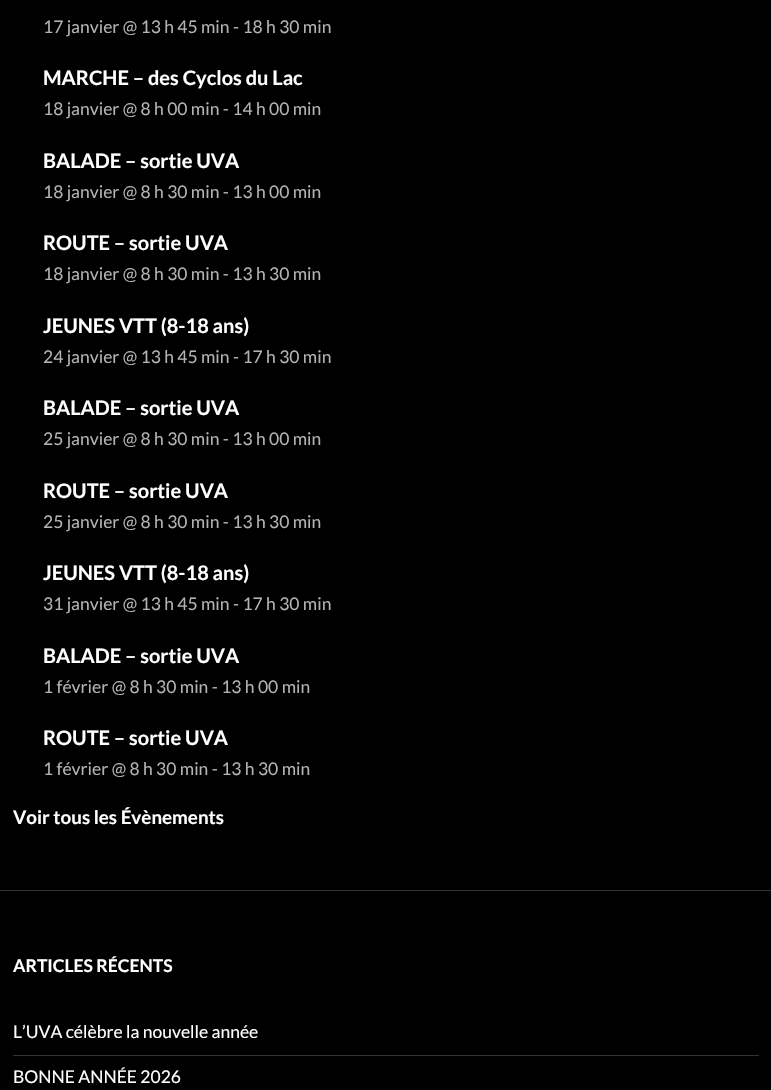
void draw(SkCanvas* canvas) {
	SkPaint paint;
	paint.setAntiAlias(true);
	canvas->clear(0xff000000);
	paint.setColor(0xff333333);
	canvas->drawRect(SkRect::MakeXYWH(0, 890, 771, 1), paint);
	SkFont f1(fontMgr->matchFamilyStyle("Lato", SkFontStyle::Normal()), 17.5);
	f1.setSubpixel(true);
	paint.setColor(0xffb3b3b3);
	canvas->drawString("17 janvier @ 13 h 45 min - 18 h 30 min", 43, 33, f1, paint);
	SkFont f2(fontMgr->matchFamilyStyle("Lato", SkFontStyle::Bold()), 20);
	f2.setSubpixel(true);
	paint.setColor(0xffffffff);
	canvas->drawString("MARCHE – des Cyclos du Lac", 43, 85, f2, paint);
	paint.setColor(0xffb3b3b3);
	canvas->drawString("18 janvier @ 8 h 00 min - 14 h 00 min", 43, 115, f1, paint);
	paint.setColor(0xffffffff);
	canvas->drawString("BALADE – sortie UVA", 43, 168, f2, paint);
	paint.setColor(0xffb3b3b3);
	canvas->drawString("18 janvier @ 8 h 30 min - 13 h 00 min", 43, 198, f1, paint);
	paint.setColor(0xffffffff);
	canvas->drawString("ROUTE – sortie UVA", 43, 250, f2, paint);
	paint.setColor(0xffb3b3b3);
	canvas->drawString("18 janvier @ 8 h 30 min - 13 h 30 min", 43, 280, f1, paint);
	paint.setColor(0xffffffff);
	canvas->drawString("JEUNES VTT (8-18 ans)", 43, 333, f2, paint);
	paint.setColor(0xffb3b3b3);
	canvas->drawString("24 janvier @ 13 h 45 min - 17 h 30 min", 43, 363, f1, paint);
	paint.setColor(0xffffffff);
	canvas->drawString("BALADE – sortie UVA", 43, 415, f2, paint);
	paint.setColor(0xffb3b3b3);
	canvas->drawString("25 janvier @ 8 h 30 min - 13 h 00 min", 43, 445, f1, paint);
	paint.setColor(0xffffffff);
	canvas->drawString("ROUTE – sortie UVA", 43, 498, f2, paint);
	paint.setColor(0xffb3b3b3);
	canvas->drawString("25 janvier @ 8 h 30 min - 13 h 30 min", 43, 528, f1, paint);
	paint.setColor(0xffffffff);
	canvas->drawString("JEUNES VTT (8-18 ans)", 43, 580, f2, paint);
	paint.setColor(0xffb3b3b3);
	canvas->drawString("31 janvier @ 13 h 45 min - 17 h 30 min", 43, 610, f1, paint);
	paint.setColor(0xffffffff);
	canvas->drawString("BALADE – sortie UVA", 43, 663, f2, paint);
	paint.setColor(0xffb3b3b3);
	canvas->drawString("1 février @ 8 h 30 min - 13 h 00 min", 43, 693, f1, paint);
	paint.setColor(0xffffffff);
	canvas->drawString("ROUTE – sortie UVA", 43, 745, f2, paint);
	paint.setColor(0xffb3b3b3);
	canvas->drawString("1 février @ 8 h 30 min - 13 h 30 min", 43, 775, f1, paint);
	SkFont f3(fontMgr->matchFamilyStyle("Lato", SkFontStyle::Bold()), 18.75);
	f3.setSubpixel(true);
	paint.setColor(0xffffffff);
	canvas->drawString("Voir tous les Évènements", 13, 824, f3, paint);
	SkFont f4(fontMgr->matchFamilyStyle("Lato", SkFontStyle::Bold()), 17.5);
	f4.setSubpixel(true);
	canvas->drawString("ARTICLES RÉCENTS", 13, 972, f4, paint);
	canvas->drawString("L’UVA célèbre la nouvelle année", 13, 1038, f1, paint);
	paint.setColor(0xff333333);
	canvas->drawRect(SkRect::MakeXYWH(13, 1055, 746, 1), paint);
	paint.setColor(0xffffffff);
	canvas->drawString("BONNE ANNÉE 2026", 13, 1083, f1, paint);
}
